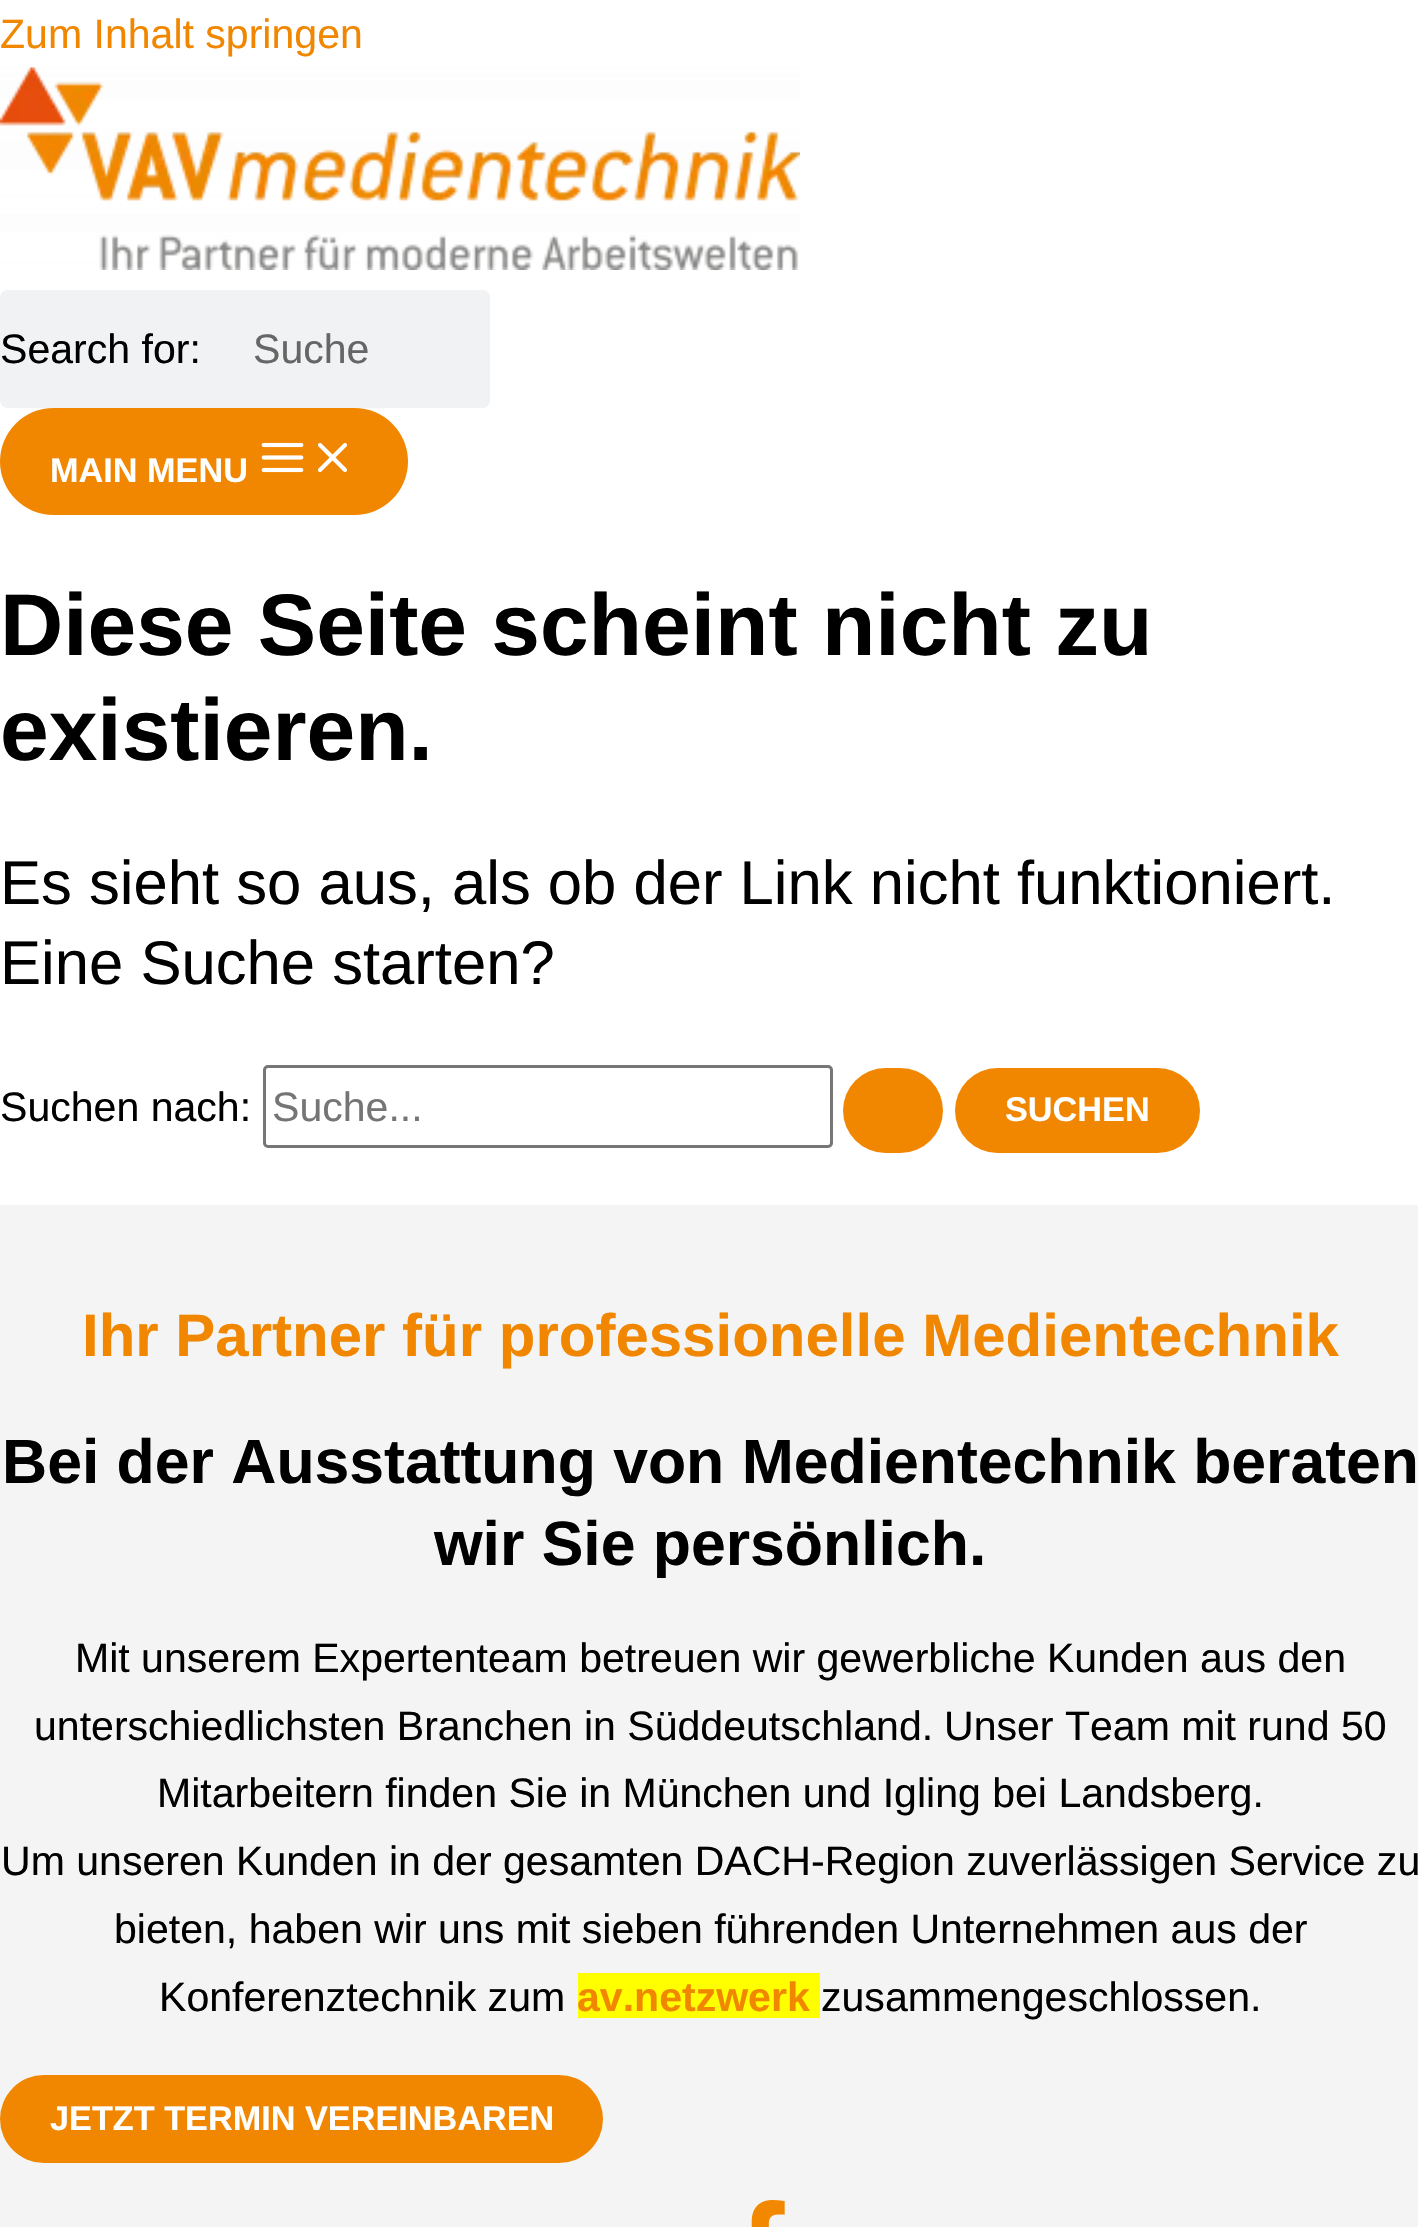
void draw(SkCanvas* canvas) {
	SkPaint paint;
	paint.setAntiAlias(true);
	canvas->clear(0xffffffff);
	SkFont f1(fontMgr->matchFamilyStyle("Liberation Sans", SkFontStyle::Normal()), 41.05);
	f1.setSubpixel(true);
	paint.setColor(0xfff18700);
	canvas->drawString("Zum Inhalt springen", 0, 48, f1, paint);
	canvas->drawImageRect(SkImages::DeferredFromEncodedData(SkData::MakeFromFileName("img1.png")), SkRect::MakeXYWH(0, 67, 800, 203), SkSamplingOptions());
	paint.setColor(0xfff1f2f3);
	canvas->drawRoundRect(SkRect::MakeXYWH(0, 290, 490, 118), 8, 8, paint);
	paint.setColor(0xff000000);
	canvas->drawString("Search for:", 0, 363, f1, paint);
	paint.setColor(0xfff1f2f3);
	canvas->drawRoundRect(SkRect::MakeXYWH(213, 290, 277, 118), 8, 8, paint);
	paint.setColor(0xff666666);
	canvas->drawString("Suche", 253, 363, f1, paint);
	paint.setColor(0xfff18700);
	canvas->drawRoundRect(SkRect::MakeXYWH(0, 408, 408, 107), 53.5, 53.5, paint);
	SkFont f2(fontMgr->matchFamilyStyle("Liberation Sans", SkFontStyle::Bold()), 34.25);
	f2.setSubpixel(true);
	paint.setColor(0xffffffff);
	canvas->drawString("MAIN MENU", 50, 482, f2, paint);
	canvas->drawImageRect(SkImages::DeferredFromEncodedData(SkData::MakeFromFileName("img2.png")), SkRect::MakeXYWH(261, 442, 43, 31), SkSamplingOptions());
	canvas->drawImageRect(SkImages::DeferredFromEncodedData(SkData::MakeFromFileName("img3.png")), SkRect::MakeXYWH(318, 443, 29, 29), SkSamplingOptions());
	SkFont f3(fontMgr->matchFamilyStyle("Liberation Sans", SkFontStyle::Bold()), 87.5);
	f3.setSubpixel(true);
	paint.setColor(0xff000000);
	canvas->drawString("Diese Seite scheint nicht zu", 0, 655, f3, paint);
	canvas->drawString("existieren.", 0, 760, f3, paint);
	SkFont f4(fontMgr->matchFamilyStyle("Liberation Sans", SkFontStyle::Normal()), 61.6);
	f4.setSubpixel(true);
	canvas->drawString("Es sieht so aus, als ob der Link nicht funktioniert.", 0, 904, f4, paint);
	canvas->drawString("Eine Suche starten?", 0, 984, f4, paint);
	canvas->drawString("Suchen nach:", 0, 1121, f1, paint);
	paint.setStroke(true);
	paint.setStrokeWidth(3);
	paint.setColor(0xff767676);
	canvas->drawRoundRect(SkRect::MakeXYWH(264.5, 1066.5, 567, 80), 3.5, 3.5, paint);
	paint.setStroke(false);
	paint.setColor(0xff757575);
	canvas->drawString("Suche...", 272, 1121, f1, paint);
	paint.setColor(0xfff18700);
	canvas->drawRoundRect(SkRect::MakeXYWH(843, 1068, 100, 85), 42.5, 42.5, paint);
	canvas->drawRoundRect(SkRect::MakeXYWH(955, 1068, 245, 85), 42.5, 42.5, paint);
	paint.setColor(0xffffffff);
	canvas->drawString("SUCHEN", 1005, 1121, f2, paint);
	paint.setColor(0xfff4f4f4);
	canvas->drawRect(SkRect::MakeXYWH(0, 1205, 1418, 1022), paint);
	SkFont f5(fontMgr->matchFamilyStyle("Liberation Sans", SkFontStyle::Bold()), 60);
	f5.setSubpixel(true);
	paint.setColor(0xfff18700);
	canvas->drawString("Ihr Partner für professionelle Medientechnik", 82, 1356, f5, paint);
	SkFont f6(fontMgr->matchFamilyStyle("Liberation Sans", SkFontStyle::Bold()), 62.5);
	f6.setSubpixel(true);
	paint.setColor(0xff000000);
	canvas->drawString("Bei der Ausstattung von Medientechnik beraten", 2, 1483, f6, paint);
	canvas->drawString("wir Sie persönlich.", 434, 1565, f6, paint);
	canvas->drawString("Mit unserem Expertenteam betreuen wir gewerbliche Kunden aus den", 75, 1672, f1, paint);
	canvas->drawString("unterschiedlichsten Branchen in Süddeutschland.", 34, 1740, f1, paint);
	canvas->drawString("Unser Team mit rund 50", 944, 1740, f1, paint);
	canvas->drawString("Mitarbeitern finden Sie in München und Igling bei Landsberg.", 157, 1807, f1, paint);
	canvas->drawString("Um unseren Kunden in der gesamten DACH-Region zuverlässigen Service zu", 1, 1875, f1, paint);
	canvas->drawString("bieten, haben wir uns mit sieben führenden Unternehmen aus der", 114, 1943, f1, paint);
	canvas->drawString("Konferenztechnik zum", 159, 2011, f1, paint);
	paint.setColor(0xffffff00);
	canvas->drawRect(SkRect::MakeXYWH(578, 1973, 242, 45), paint);
	SkFont f7(fontMgr->matchFamilyStyle("Liberation Sans", SkFontStyle::Bold()), 41.05);
	f7.setSubpixel(true);
	paint.setColor(0xfff18700);
	canvas->drawString("av.netzwerk", 577, 2011, f7, paint);
	paint.setColor(0xff000000);
	canvas->drawString("zusammengeschlossen.", 821, 2011, f1, paint);
	paint.setColor(0xfff18700);
	canvas->drawRoundRect(SkRect::MakeXYWH(0, 2075, 603, 88), 44, 44, paint);
	paint.setColor(0xffffffff);
	canvas->drawString("JETZT TERMIN VEREINBAREN", 50, 2130, f2, paint);
	canvas->drawImageRect(SkImages::DeferredFromEncodedData(SkData::MakeFromFileName("img4.png")), SkRect::MakeXYWH(751, 2200, 34, 27), SkSamplingOptions());
}
